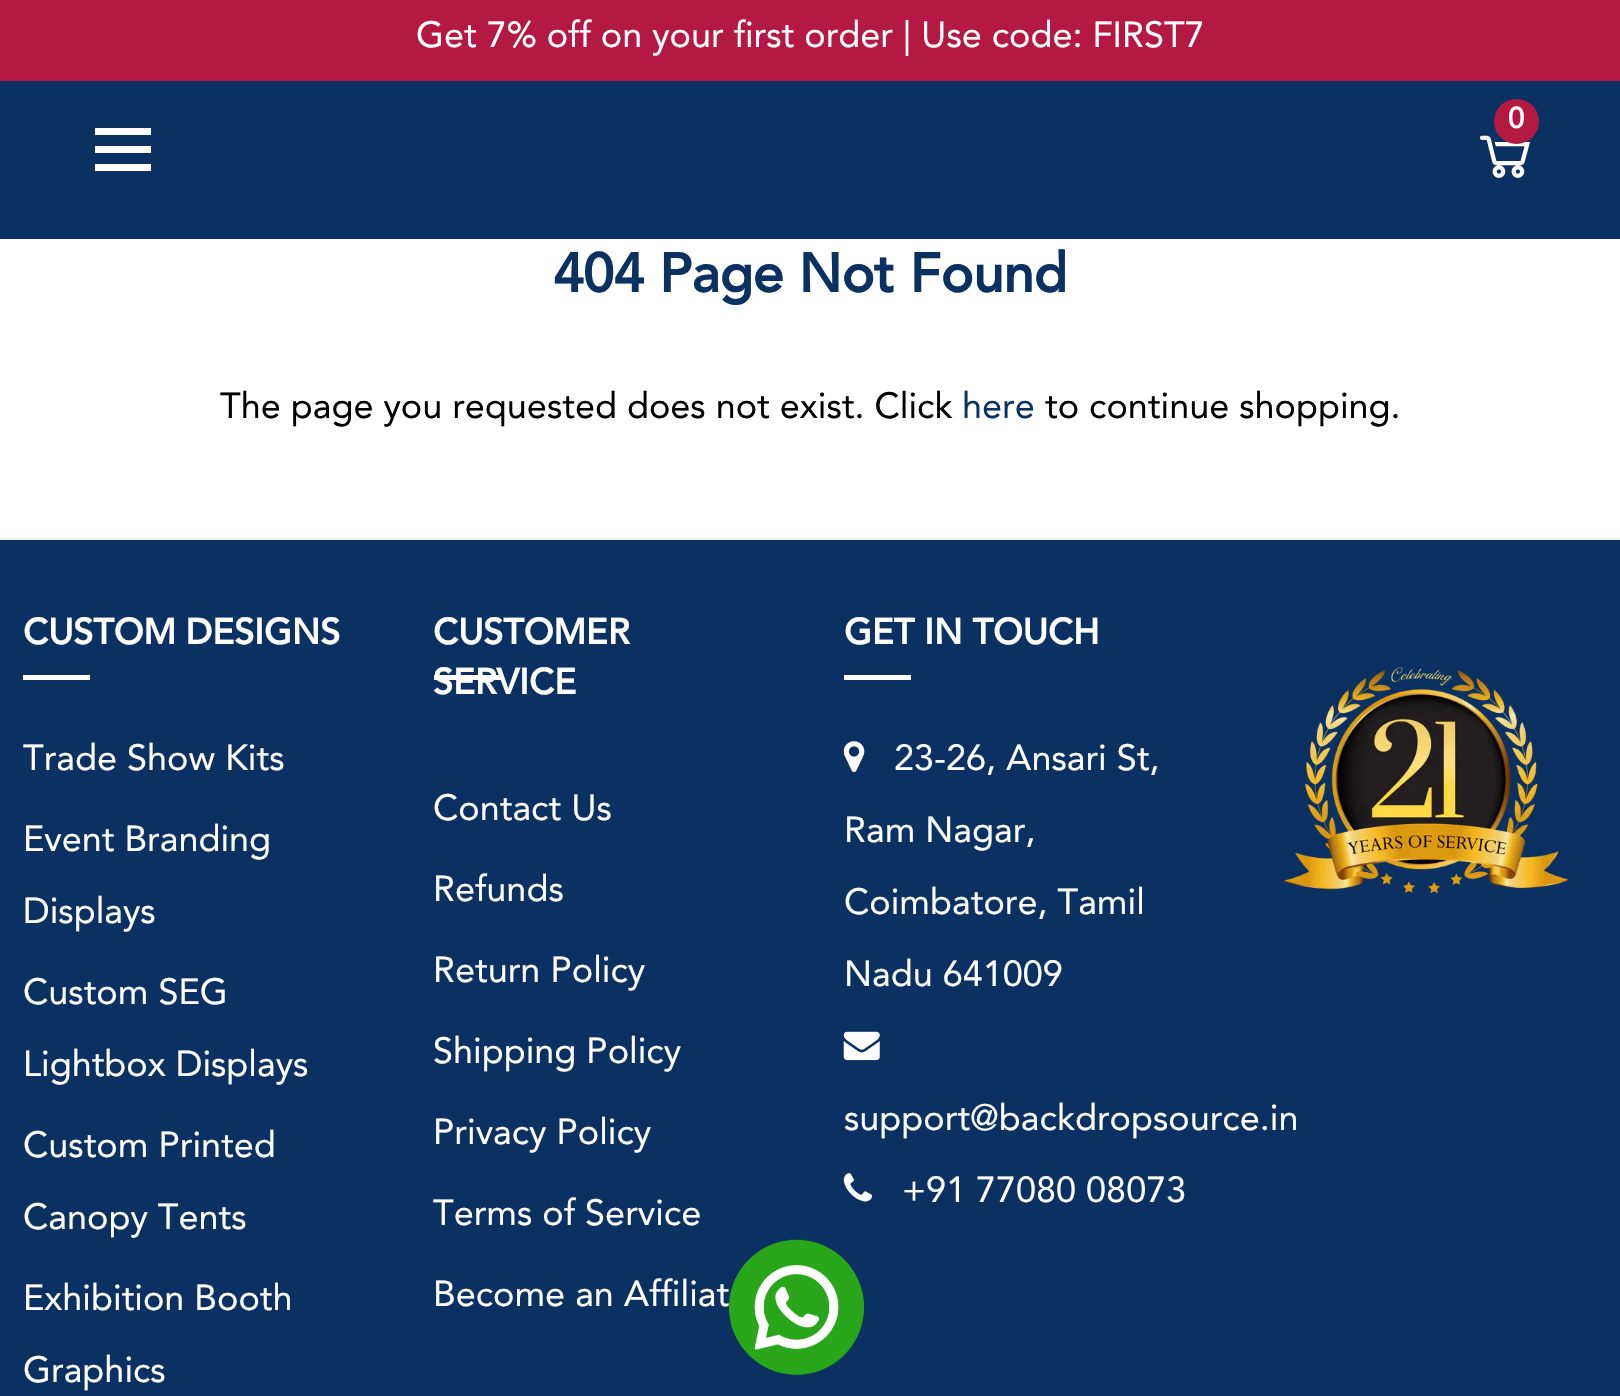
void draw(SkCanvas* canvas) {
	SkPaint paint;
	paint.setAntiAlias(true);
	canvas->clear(0xffffffff);
	paint.setColor(0xffb31942);
	canvas->drawRect(SkRect::MakeXYWH(0, 0, 1620, 81), paint);
	SkFont f1(fontMgr->matchFamilyStyle("Avenir", SkFontStyle::Normal()), 36);
	f1.setSubpixel(true);
	paint.setColor(0xffffffff);
	canvas->drawString("Get 7% off on your first order | Use code: FIRST7", 416, 47, f1, paint);
	paint.setColor(0xff0a3161);
	canvas->drawRect(SkRect::MakeXYWH(0, 81, 1620, 158), paint);
	canvas->drawImageRect(SkImages::DeferredFromEncodedData(SkData::MakeFromFileName("img1.png")), SkRect::MakeXYWH(1480, 135, 50, 43), SkSamplingOptions());
	paint.setColor(0xffb31942);
	canvas->drawCircle(1516.5, 121.5, 22.5, paint);
	SkFont f2(fontMgr->matchFamilyStyle("Avenir", SkFontStyle::Bold()), 29);
	f2.setSubpixel(true);
	paint.setColor(0xffffffff);
	canvas->drawString("0", 1508, 128, f2, paint);
	canvas->drawRect(SkRect::MakeXYWH(95, 146, 56, 7), paint);
	canvas->drawRect(SkRect::MakeXYWH(95, 128, 56, 7), paint);
	canvas->drawRect(SkRect::MakeXYWH(95, 164, 56, 7), paint);
	SkFont f3(fontMgr->matchFamilyStyle("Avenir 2", SkFontStyle::Bold()), 54.5);
	f3.setSubpixel(true);
	paint.setColor(0xff0a3161);
	canvas->drawString("404 Page Not Found", 553, 292, f3, paint);
	paint.setColor(0xff000000);
	canvas->drawString("The page you requested does not exist. Click", 220, 418, f1, paint);
	paint.setColor(0xff0a3161);
	canvas->drawString("here", 962, 418, f1, paint);
	paint.setColor(0xff000000);
	canvas->drawString("to continue shopping.", 1045, 418, f1, paint);
	paint.setColor(0xfff0f0f0);
	canvas->drawRect(SkRect::MakeXYWH(0, 538, 1620, 2), paint);
	paint.setColor(0xff0a3161);
	canvas->drawRect(SkRect::MakeXYWH(0, 540, 1620, 856), paint);
	SkFont f4(fontMgr->matchFamilyStyle("Avenir 2", SkFontStyle::Bold()), 35.75);
	f4.setSubpixel(true);
	paint.setColor(0xffffffff);
	canvas->drawString("CUSTOM DESIGNS", 23, 644, f4, paint);
	canvas->drawRect(SkRect::MakeXYWH(23, 675, 67, 5), paint);
	canvas->drawString("Trade Show Kits", 23, 770, f1, paint);
	canvas->drawString("Event Branding", 23, 851, f1, paint);
	canvas->drawString("Displays", 23, 923, f1, paint);
	canvas->drawString("Custom SEG", 23, 1004, f1, paint);
	canvas->drawString("Lightbox Displays", 23, 1076, f1, paint);
	canvas->drawString("Custom Printed", 23, 1157, f1, paint);
	canvas->drawString("Canopy Tents", 23, 1229, f1, paint);
	canvas->drawString("Exhibition Booth", 23, 1310, f1, paint);
	canvas->drawString("Graphics", 23, 1382, f1, paint);
	canvas->drawString("CUSTOMER", 433, 644, f4, paint);
	canvas->drawString("SERVICE", 433, 694, f4, paint);
	canvas->drawRect(SkRect::MakeXYWH(434, 675, 68, 5), paint);
	canvas->drawString("Contact Us", 433, 820, f1, paint);
	canvas->drawString("Refunds", 433, 901, f1, paint);
	canvas->drawString("Return Policy", 433, 982, f1, paint);
	canvas->drawString("Shipping Policy", 433, 1063, f1, paint);
	canvas->drawString("Privacy Policy", 433, 1144, f1, paint);
	canvas->drawString("Terms of Service", 433, 1225, f1, paint);
	canvas->drawString("Become an Affiliat", 433, 1306, f1, paint);
	canvas->drawString("GET IN TOUCH", 844, 644, f4, paint);
	canvas->drawRect(SkRect::MakeXYWH(844, 675, 67, 5), paint);
	canvas->drawImageRect(SkImages::DeferredFromEncodedData(SkData::MakeFromFileName("img2.png")), SkRect::MakeXYWH(843, 741, 22, 31), SkSamplingOptions());
	canvas->drawString("23-26, Ansari St,", 894, 770, f1, paint);
	canvas->drawString("Ram Nagar,", 844, 842, f1, paint);
	canvas->drawString("Coimbatore, Tamil", 844, 914, f1, paint);
	canvas->drawString("Nadu 641009", 844, 986, f1, paint);
	canvas->drawImageRect(SkImages::DeferredFromEncodedData(SkData::MakeFromFileName("img3.png")), SkRect::MakeXYWH(843, 1031, 37, 30), SkSamplingOptions());
	canvas->drawString("support@backdropsource.in", 844, 1130, f1, paint);
	canvas->drawImageRect(SkImages::DeferredFromEncodedData(SkData::MakeFromFileName("img4.png")), SkRect::MakeXYWH(843, 1173, 29, 29), SkSamplingOptions());
	canvas->drawString("+91 77080 08073", 902, 1202, f1, paint);
	canvas->drawImageRect(SkImages::DeferredFromEncodedData(SkData::MakeFromFileName("img5.png")), SkRect::MakeXYWH(1283, 667, 287, 227), SkSamplingOptions());
	canvas->drawImageRect(SkImages::DeferredFromEncodedData(SkData::MakeFromFileName("img6.png")), SkRect::MakeXYWH(729, 1239, 135, 136), SkSamplingOptions());
}
